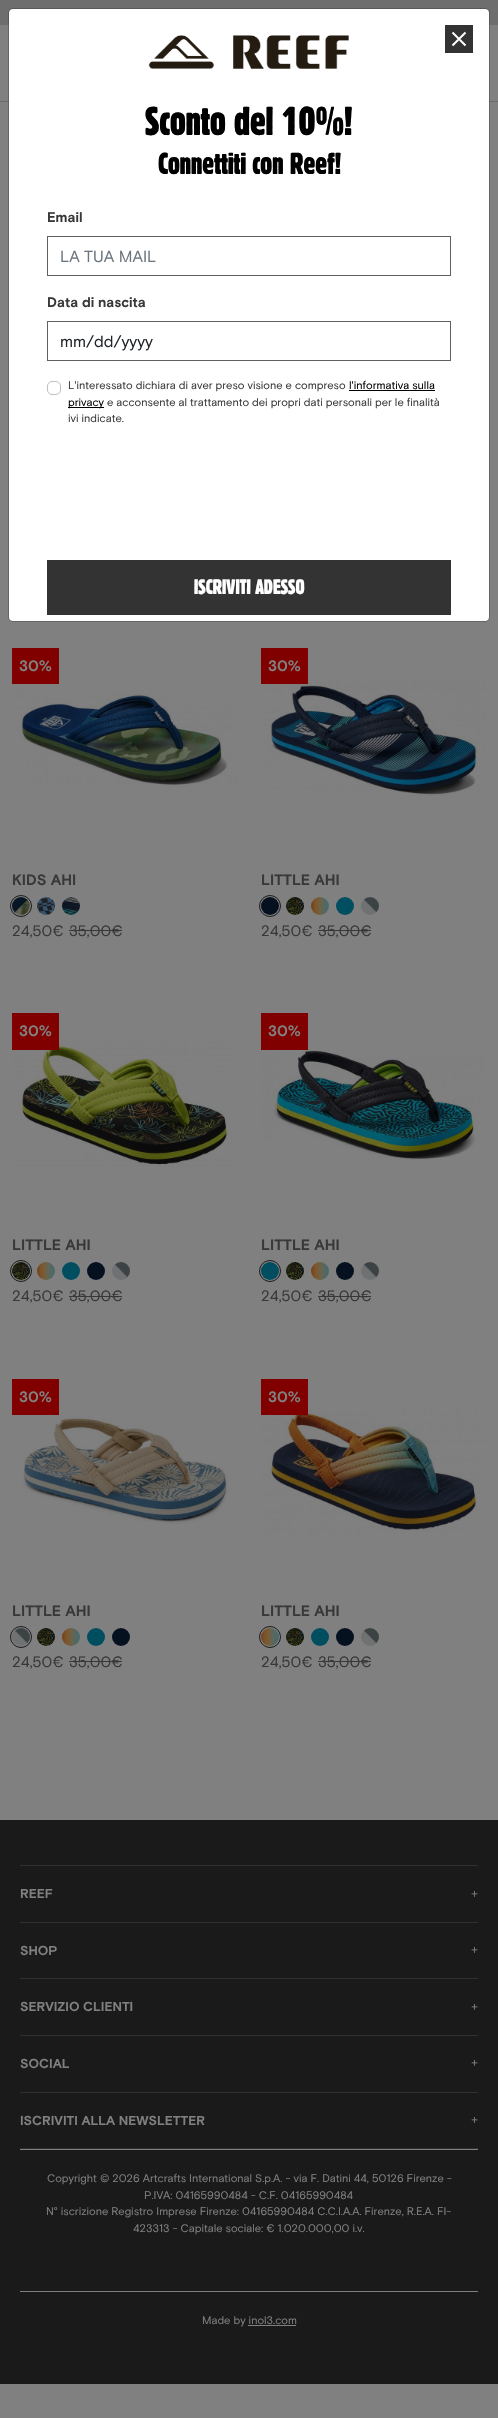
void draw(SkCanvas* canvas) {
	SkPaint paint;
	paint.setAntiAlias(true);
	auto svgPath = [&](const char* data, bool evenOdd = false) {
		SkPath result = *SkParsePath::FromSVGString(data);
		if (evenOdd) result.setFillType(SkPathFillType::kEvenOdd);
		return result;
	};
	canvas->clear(0xff808080);
	paint.setColor(0xff6e6e6e);
	canvas->drawRect(SkRect::MakeXYWH(0, 0, 498, 25), paint);
	paint.setColor(0xff6b6b6b);
	canvas->drawRect(SkRect::MakeXYWH(0, 101, 498, 1), paint);
	paint.setColor(0xffffffff);
	canvas->drawRoundRect(SkRect::MakeXYWH(9, 9, 480, 612), 4, 4, paint);
	paint.setStroke(true);
	paint.setStrokeWidth(1);
	paint.setColor(0x33000000);
	canvas->drawRoundRect(SkRect::MakeXYWH(8.5, 8.5, 481, 613), 4.5, 4.5, paint);
	paint.setStroke(false);
	paint.setColor(0xff333333);
	canvas->drawRect(SkRect::MakeXYWH(445, 25, 28, 28), paint);
	paint.setStroke(true);
	paint.setStrokeWidth(2);
	paint.setColor(0xffffffff);
	canvas->drawPath(svgPath("M452.5 32.5L465.5 45.5M452.5 45.5L465.5 32.5"), paint);
	canvas->drawImageRect(SkImages::DeferredFromEncodedData(SkData::MakeFromFileName("img1.png")), SkRect::MakeXYWH(148, 35, 201, 34), SkSamplingOptions());
	SkFont f1(fontMgr->matchFamilyStyle("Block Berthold", SkFontStyle::Normal()), 40);
	f1.setSubpixel(true);
	paint.setStroke(false);
	paint.setColor(0xff000000);
	canvas->drawString("Sconto del 10%!", 145, 135, f1, paint);
	SkFont f2(fontMgr->matchFamilyStyle("Block Berthold", SkFontStyle::Normal()), 30);
	f2.setSubpixel(true);
	canvas->drawString("Connettiti con Reef!", 158, 174, f2, paint);
	SkFont f3(fontMgr->matchFamilyStyle("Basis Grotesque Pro", SkFontStyle::Bold()), 14);
	f3.setSubpixel(true);
	paint.setColor(0xff383838);
	canvas->drawString("Email", 47, 222, f3, paint);
	paint.setStroke(true);
	paint.setStrokeWidth(1);
	paint.setColor(0xff606060);
	canvas->drawRect(SkRect::MakeXYWH(47.5, 236.5, 403, 39), paint);
	SkFont f4(fontMgr->matchFamilyStyle("Basis Grotesque Pro", SkFontStyle::Normal()), 16);
	f4.setSubpixel(true);
	paint.setStroke(false);
	paint.setColor(0xff6c757d);
	canvas->drawString("LA TUA MAIL", 60, 262, f4, paint);
	paint.setColor(0xff383838);
	canvas->drawString("Data di nascita", 47, 307, f3, paint);
	paint.setStroke(true);
	paint.setColor(0xff606060);
	canvas->drawRect(SkRect::MakeXYWH(47.5, 321.5, 403, 39), paint);
	paint.setStroke(false);
	paint.setColor(0xff212529);
	canvas->drawString("mm/dd/yyyy", 60, 347, f4, paint);
	paint.setStroke(true);
	paint.setColor(0xffbfbfbf);
	canvas->drawRoundRect(SkRect::MakeXYWH(47.5, 381.5, 13, 13), 4.5, 4.5, paint);
	SkFont f5(fontMgr->matchFamilyStyle("Basis Grotesque Pro", SkFontStyle::Normal()), 11);
	f5.setSubpixel(true);
	paint.setStroke(false);
	paint.setColor(0xff383838);
	canvas->drawString("L'interessato dichiara di aver preso visione e compreso", 68, 389, f5, paint);
	paint.setColor(0xff000000);
	canvas->drawString("l'informativa sulla", 349, 389, f5, paint);
	canvas->drawRect(SkRect::MakeXYWH(349, 390, 86, 1), paint);
	canvas->drawRect(SkRect::MakeXYWH(68, 407, 36, 1), paint);
	canvas->drawString("privacy", 68, 406, f5, paint);
	paint.setColor(0xff383838);
	canvas->drawString("e acconsente al trattamento dei propri dati personali per le finalità", 107, 406, f5, paint);
	canvas->drawString("ivi indicate.", 68, 422, f5, paint);
	paint.setColor(0xff333333);
	canvas->drawRect(SkRect::MakeXYWH(47, 560, 404, 55), paint);
	SkFont f6(fontMgr->matchFamilyStyle("Block Berthold", SkFontStyle::Normal()), 20.75);
	f6.setSubpixel(true);
	paint.setColor(0xffffffff);
	canvas->drawString("ISCRIVITI ADESSO", 194, 594, f6, paint);
	canvas->drawImageRect(SkImages::DeferredFromEncodedData(SkData::MakeFromFileName("img2.png")), SkRect::MakeXYWH(12, 628, 225, 225), SkSamplingOptions());
	paint.setColor(0xff800000);
	canvas->drawRect(SkRect::MakeXYWH(12, 648, 47, 36), paint);
	SkFont f7(fontMgr->matchFamilyStyle("Basis Grotesque Pro", SkFontStyle::Bold()), 15);
	f7.setSubpixel(true);
	paint.setColor(0xff808080);
	canvas->drawString("30%", 19, 671, f7, paint);
	paint.setColor(0xff383838);
	canvas->drawString("KIDS AHI", 12, 885, f7, paint);
	canvas->drawImageRect(SkImages::DeferredFromEncodedData(SkData::MakeFromFileName("img3.png")), SkRect::MakeXYWH(12, 897, 18, 18), SkSamplingOptions());
	paint.setStroke(true);
	paint.setColor(0xff1a1a1a);
	canvas->drawCircle(21, 906, 10.5, paint);
	canvas->drawImageRect(SkImages::DeferredFromEncodedData(SkData::MakeFromFileName("img4.png")), SkRect::MakeXYWH(37, 897, 18, 18), SkSamplingOptions());
	canvas->drawImageRect(SkImages::DeferredFromEncodedData(SkData::MakeFromFileName("img5.png")), SkRect::MakeXYWH(62, 897, 18, 18), SkSamplingOptions());
	SkFont f8(fontMgr->matchFamilyStyle("Basis Grotesque Pro", SkFontStyle::Normal()), 15);
	f8.setSubpixel(true);
	paint.setStroke(false);
	paint.setColor(0xff383838);
	canvas->drawString("24,50€", 12, 936, f8, paint);
	canvas->drawString("35,00€", 69, 936, f8, paint);
	canvas->drawRect(SkRect::MakeXYWH(69, 930, 53, 1), paint);
	canvas->drawImageRect(SkImages::DeferredFromEncodedData(SkData::MakeFromFileName("img6.png")), SkRect::MakeXYWH(261, 628, 225, 225), SkSamplingOptions());
	paint.setColor(0xff800000);
	canvas->drawRect(SkRect::MakeXYWH(261, 648, 47, 36), paint);
	paint.setColor(0xff808080);
	canvas->drawString("30%", 268, 671, f7, paint);
	paint.setColor(0xff383838);
	canvas->drawString("LITTLE AHI", 261, 885, f7, paint);
	canvas->drawImageRect(SkImages::DeferredFromEncodedData(SkData::MakeFromFileName("img7.png")), SkRect::MakeXYWH(261, 897, 18, 18), SkSamplingOptions());
	paint.setStroke(true);
	paint.setColor(0xff1a1a1a);
	canvas->drawCircle(270, 906, 10.5, paint);
	canvas->drawImageRect(SkImages::DeferredFromEncodedData(SkData::MakeFromFileName("img8.png")), SkRect::MakeXYWH(286, 897, 18, 18), SkSamplingOptions());
	canvas->drawImageRect(SkImages::DeferredFromEncodedData(SkData::MakeFromFileName("img9.png")), SkRect::MakeXYWH(311, 897, 18, 18), SkSamplingOptions());
	canvas->drawImageRect(SkImages::DeferredFromEncodedData(SkData::MakeFromFileName("img10.png")), SkRect::MakeXYWH(336, 897, 18, 18), SkSamplingOptions());
	canvas->drawImageRect(SkImages::DeferredFromEncodedData(SkData::MakeFromFileName("img11.png")), SkRect::MakeXYWH(361, 897, 18, 18), SkSamplingOptions());
	paint.setStroke(false);
	paint.setColor(0xff383838);
	canvas->drawString("24,50€", 261, 936, f8, paint);
	canvas->drawString("35,00€", 318, 936, f8, paint);
	canvas->drawRect(SkRect::MakeXYWH(318, 930, 53, 1), paint);
	canvas->drawImageRect(SkImages::DeferredFromEncodedData(SkData::MakeFromFileName("img12.png")), SkRect::MakeXYWH(12, 993, 225, 225), SkSamplingOptions());
	paint.setColor(0xff800000);
	canvas->drawRect(SkRect::MakeXYWH(12, 1013, 47, 37), paint);
	paint.setColor(0xff808080);
	canvas->drawString("30%", 19, 1036, f7, paint);
	paint.setColor(0xff383838);
	canvas->drawString("LITTLE AHI", 12, 1250, f7, paint);
	canvas->drawImageRect(SkImages::DeferredFromEncodedData(SkData::MakeFromFileName("img13.png")), SkRect::MakeXYWH(12, 1262, 18, 18), SkSamplingOptions());
	paint.setStroke(true);
	paint.setColor(0xff1a1a1a);
	canvas->drawCircle(21, 1271, 10.5, paint);
	canvas->drawImageRect(SkImages::DeferredFromEncodedData(SkData::MakeFromFileName("img14.png")), SkRect::MakeXYWH(37, 1262, 18, 18), SkSamplingOptions());
	canvas->drawImageRect(SkImages::DeferredFromEncodedData(SkData::MakeFromFileName("img15.png")), SkRect::MakeXYWH(62, 1262, 18, 18), SkSamplingOptions());
	canvas->drawImageRect(SkImages::DeferredFromEncodedData(SkData::MakeFromFileName("img16.png")), SkRect::MakeXYWH(87, 1262, 18, 18), SkSamplingOptions());
	canvas->drawImageRect(SkImages::DeferredFromEncodedData(SkData::MakeFromFileName("img17.png")), SkRect::MakeXYWH(112, 1262, 18, 18), SkSamplingOptions());
	paint.setStroke(false);
	paint.setColor(0xff383838);
	canvas->drawString("24,50€", 12, 1301, f8, paint);
	canvas->drawString("35,00€", 69, 1301, f8, paint);
	canvas->drawRect(SkRect::MakeXYWH(69, 1296, 53, 1), paint);
	canvas->drawImageRect(SkImages::DeferredFromEncodedData(SkData::MakeFromFileName("img18.png")), SkRect::MakeXYWH(261, 993, 225, 225), SkSamplingOptions());
	paint.setColor(0xff800000);
	canvas->drawRect(SkRect::MakeXYWH(261, 1013, 47, 37), paint);
	paint.setColor(0xff808080);
	canvas->drawString("30%", 268, 1036, f7, paint);
	paint.setColor(0xff383838);
	canvas->drawString("LITTLE AHI", 261, 1250, f7, paint);
	canvas->drawImageRect(SkImages::DeferredFromEncodedData(SkData::MakeFromFileName("img15.png")), SkRect::MakeXYWH(261, 1262, 18, 18), SkSamplingOptions());
	paint.setStroke(true);
	paint.setColor(0xff1a1a1a);
	canvas->drawCircle(270, 1271, 10.5, paint);
	canvas->drawImageRect(SkImages::DeferredFromEncodedData(SkData::MakeFromFileName("img19.png")), SkRect::MakeXYWH(286, 1262, 18, 18), SkSamplingOptions());
	canvas->drawImageRect(SkImages::DeferredFromEncodedData(SkData::MakeFromFileName("img20.png")), SkRect::MakeXYWH(311, 1262, 18, 18), SkSamplingOptions());
	canvas->drawImageRect(SkImages::DeferredFromEncodedData(SkData::MakeFromFileName("img16.png")), SkRect::MakeXYWH(336, 1262, 18, 18), SkSamplingOptions());
	canvas->drawImageRect(SkImages::DeferredFromEncodedData(SkData::MakeFromFileName("img17.png")), SkRect::MakeXYWH(361, 1262, 18, 18), SkSamplingOptions());
	paint.setStroke(false);
	paint.setColor(0xff383838);
	canvas->drawString("24,50€", 261, 1301, f8, paint);
	canvas->drawString("35,00€", 318, 1301, f8, paint);
	canvas->drawRect(SkRect::MakeXYWH(318, 1296, 53, 1), paint);
	canvas->drawImageRect(SkImages::DeferredFromEncodedData(SkData::MakeFromFileName("img21.png")), SkRect::MakeXYWH(12, 1359, 225, 225), SkSamplingOptions());
	paint.setColor(0xff800000);
	canvas->drawRect(SkRect::MakeXYWH(12, 1379, 47, 36), paint);
	paint.setColor(0xff808080);
	canvas->drawString("30%", 19, 1402, f7, paint);
	paint.setColor(0xff383838);
	canvas->drawString("LITTLE AHI", 12, 1616, f7, paint);
	canvas->drawImageRect(SkImages::DeferredFromEncodedData(SkData::MakeFromFileName("img22.png")), SkRect::MakeXYWH(12, 1628, 18, 18), SkSamplingOptions());
	paint.setStroke(true);
	paint.setColor(0xff1a1a1a);
	canvas->drawCircle(21, 1637, 10.5, paint);
	canvas->drawImageRect(SkImages::DeferredFromEncodedData(SkData::MakeFromFileName("img23.png")), SkRect::MakeXYWH(37, 1628, 18, 18), SkSamplingOptions());
	canvas->drawImageRect(SkImages::DeferredFromEncodedData(SkData::MakeFromFileName("img9.png")), SkRect::MakeXYWH(62, 1628, 18, 18), SkSamplingOptions());
	canvas->drawImageRect(SkImages::DeferredFromEncodedData(SkData::MakeFromFileName("img10.png")), SkRect::MakeXYWH(87, 1628, 18, 18), SkSamplingOptions());
	canvas->drawImageRect(SkImages::DeferredFromEncodedData(SkData::MakeFromFileName("img7.png")), SkRect::MakeXYWH(112, 1628, 18, 18), SkSamplingOptions());
	paint.setStroke(false);
	paint.setColor(0xff383838);
	canvas->drawString("24,50€", 12, 1667, f8, paint);
	canvas->drawString("35,00€", 69, 1667, f8, paint);
	canvas->drawRect(SkRect::MakeXYWH(69, 1661, 53, 1), paint);
	canvas->drawImageRect(SkImages::DeferredFromEncodedData(SkData::MakeFromFileName("img24.png")), SkRect::MakeXYWH(261, 1359, 225, 225), SkSamplingOptions());
	paint.setColor(0xff800000);
	canvas->drawRect(SkRect::MakeXYWH(261, 1379, 47, 36), paint);
	paint.setColor(0xff808080);
	canvas->drawString("30%", 268, 1402, f7, paint);
	paint.setColor(0xff383838);
	canvas->drawString("LITTLE AHI", 261, 1616, f7, paint);
	canvas->drawImageRect(SkImages::DeferredFromEncodedData(SkData::MakeFromFileName("img25.png")), SkRect::MakeXYWH(261, 1628, 18, 18), SkSamplingOptions());
	paint.setStroke(true);
	paint.setColor(0xff1a1a1a);
	canvas->drawCircle(270, 1637, 10.5, paint);
	canvas->drawImageRect(SkImages::DeferredFromEncodedData(SkData::MakeFromFileName("img26.png")), SkRect::MakeXYWH(286, 1628, 18, 18), SkSamplingOptions());
	canvas->drawImageRect(SkImages::DeferredFromEncodedData(SkData::MakeFromFileName("img10.png")), SkRect::MakeXYWH(311, 1628, 18, 18), SkSamplingOptions());
	canvas->drawImageRect(SkImages::DeferredFromEncodedData(SkData::MakeFromFileName("img7.png")), SkRect::MakeXYWH(336, 1628, 18, 18), SkSamplingOptions());
	canvas->drawImageRect(SkImages::DeferredFromEncodedData(SkData::MakeFromFileName("img17.png")), SkRect::MakeXYWH(361, 1628, 18, 18), SkSamplingOptions());
	paint.setStroke(false);
	paint.setColor(0xff383838);
	canvas->drawString("24,50€", 261, 1667, f8, paint);
	canvas->drawString("35,00€", 318, 1667, f8, paint);
	canvas->drawRect(SkRect::MakeXYWH(318, 1661, 53, 1), paint);
	paint.setColor(0xff1a1a1a);
	canvas->drawRect(SkRect::MakeXYWH(0, 1820, 498, 564), paint);
	paint.setColor(0xff303030);
	canvas->drawRect(SkRect::MakeXYWH(20, 1865, 458, 1), paint);
	SkFont f9(fontMgr->matchFamilyStyle("Basis Grotesque Pro", SkFontStyle::Bold()), 13);
	f9.setSubpixel(true);
	paint.setColor(0xff808080);
	canvas->drawString("REEF", 20, 1898, f9, paint);
	SkFont f10(fontMgr->matchFamilyStyle("Basis Grotesque Pro", SkFontStyle::Normal()), 14);
	f10.setSubpixel(true);
	canvas->drawString("+", 471, 1899, f10, paint);
	paint.setColor(0xff303030);
	canvas->drawRect(SkRect::MakeXYWH(20, 1922, 458, 1), paint);
	paint.setColor(0xff808080);
	canvas->drawString("SHOP", 20, 1955, f9, paint);
	canvas->drawString("+", 471, 1955, f10, paint);
	paint.setColor(0xff303030);
	canvas->drawRect(SkRect::MakeXYWH(20, 1978, 458, 1), paint);
	paint.setColor(0xff808080);
	canvas->drawString("SERVIZIO CLIENTI", 20, 2011, f9, paint);
	canvas->drawString("+", 471, 2012, f10, paint);
	paint.setColor(0xff303030);
	canvas->drawRect(SkRect::MakeXYWH(20, 2035, 458, 1), paint);
	paint.setColor(0xff808080);
	canvas->drawString("SOCIAL", 20, 2068, f9, paint);
	canvas->drawString("+", 471, 2068, f10, paint);
	paint.setColor(0xff303030);
	canvas->drawRect(SkRect::MakeXYWH(20, 2092, 458, 1), paint);
	canvas->drawRect(SkRect::MakeXYWH(20, 2148, 458, 1), paint);
	paint.setColor(0xff808080);
	canvas->drawString("ISCRIVITI ALLA NEWSLETTER", 20, 2125, f9, paint);
	canvas->drawString("+", 471, 2125, f10, paint);
	canvas->drawRect(SkRect::MakeXYWH(20, 2149, 458, 1), paint);
	canvas->drawString("Copyright © 2026 Artcrafts International S.p.A. - via F. Datini 44, 50126 Firenze -", 47, 2182, f5, paint);
	canvas->drawString("P.IVA: 04165990484 - C.F. 04165990484", 144, 2199, f5, paint);
	canvas->drawString("N° iscrizione Registro Imprese Firenze: 04165990484 C.C.I.A.A. Firenze, R.E.A. FI-", 46, 2215, f5, paint);
	canvas->drawString("423313 - Capitale sociale: € 1.020.000,00 i.v.", 133, 2232, f5, paint);
	canvas->drawRect(SkRect::MakeXYWH(20, 2291, 458, 1), paint);
	canvas->drawString("Made by inol3.com", 202, 2324, f5, paint);
	canvas->drawRect(SkRect::MakeXYWH(248, 2325, 48, 1), paint);
}
